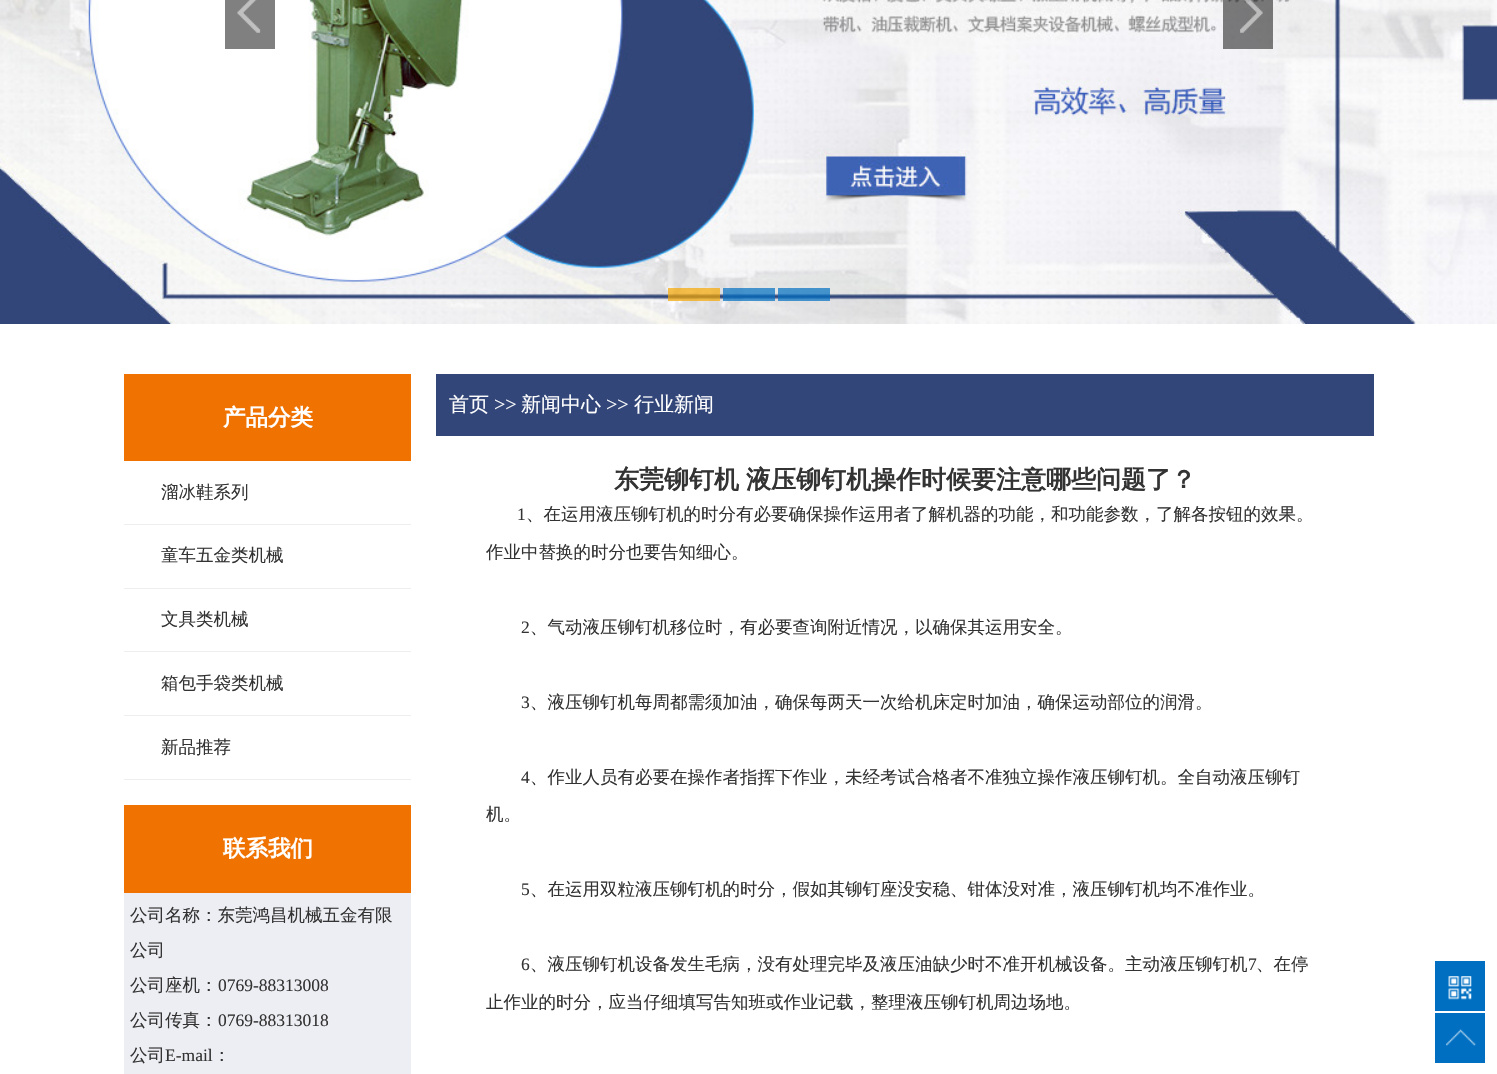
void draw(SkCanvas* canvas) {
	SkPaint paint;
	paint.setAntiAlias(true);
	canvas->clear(0xffffffff);
	canvas->drawImageRect(SkImages::DeferredFromEncodedData(SkData::MakeFromFileName("img1.png")), SkRect::MakeXYWH(0, 0, 1497, 324), SkSamplingOptions());
	paint.setColor(0xff808080);
	canvas->drawRect(SkRect::MakeXYWH(225, 0, 50, 49), paint);
	canvas->drawImageRect(SkImages::DeferredFromEncodedData(SkData::MakeFromFileName("img2.png")), SkRect::MakeXYWH(237, 0, 24, 33), SkSamplingOptions());
	paint.setColor(0x80000000);
	canvas->drawRect(SkRect::MakeXYWH(1223, 0, 50, 49), paint);
	canvas->drawImageRect(SkImages::DeferredFromEncodedData(SkData::MakeFromFileName("img3.png")), SkRect::MakeXYWH(1240, 0, 23, 33), SkSamplingOptions());
	paint.setColor(0xb3f5a601);
	canvas->drawRect(SkRect::MakeXYWH(668, 288, 52, 13), paint);
	paint.setColor(0xb3006fc2);
	canvas->drawRect(SkRect::MakeXYWH(723, 288, 52, 13), paint);
	canvas->drawRect(SkRect::MakeXYWH(778, 288, 52, 13), paint);
	paint.setColor(0xfff07201);
	canvas->drawRect(SkRect::MakeXYWH(124, 374, 287, 87), paint);
	SkFont f1(fontMgr->matchFamilyStyle("WenQuanYi Zen Hei", SkFontStyle::Bold()), 22.5);
	f1.setSubpixel(true);
	paint.setColor(0xffffffff);
	canvas->drawString("产品分类", 223, 425, f1, paint);
	paint.setColor(0xffeeeeee);
	canvas->drawRect(SkRect::MakeXYWH(124, 524, 287, 1), paint);
	SkFont f2(fontMgr->matchFamilyStyle("WenQuanYi Zen Hei", SkFontStyle(500, SkFontStyle::kNormal_Width, SkFontStyle::kUpright_Slant)), 17.5);
	f2.setSubpixel(true);
	paint.setColor(0xff333333);
	canvas->drawString("溜冰鞋系列", 161, 498, f2, paint);
	paint.setColor(0xffeeeeee);
	canvas->drawRect(SkRect::MakeXYWH(124, 588, 287, 1), paint);
	paint.setColor(0xff333333);
	canvas->drawString("童车五金类机械", 161, 561, f2, paint);
	paint.setColor(0xffeeeeee);
	canvas->drawRect(SkRect::MakeXYWH(124, 651, 287, 1), paint);
	paint.setColor(0xff333333);
	canvas->drawString("文具类机械", 161, 625, f2, paint);
	paint.setColor(0xffeeeeee);
	canvas->drawRect(SkRect::MakeXYWH(124, 715, 287, 1), paint);
	paint.setColor(0xff333333);
	canvas->drawString("箱包手袋类机械", 161, 689, f2, paint);
	paint.setColor(0xffeeeeee);
	canvas->drawRect(SkRect::MakeXYWH(124, 779, 287, 1), paint);
	paint.setColor(0xff333333);
	canvas->drawString("新品推荐", 161, 753, f2, paint);
	paint.setColor(0xfff07201);
	canvas->drawRect(SkRect::MakeXYWH(124, 805, 287, 88), paint);
	paint.setColor(0xffffffff);
	canvas->drawString("联系我们", 223, 856, f1, paint);
	paint.setColor(0xffedeef3);
	canvas->drawRect(SkRect::MakeXYWH(124, 893, 287, 181), paint);
	paint.setColor(0xff333333);
	canvas->drawString("公司名称：东莞鸿昌机械五金有限", 130, 921, f2, paint);
	canvas->drawString("公司", 130, 956, f2, paint);
	canvas->drawString("公司座机：", 130, 991, f2, paint);
	SkFont f3(fontMgr->matchFamilyStyle("Liberation Serif", SkFontStyle::Normal()), 17.5);
	f3.setSubpixel(true);
	canvas->drawString("0769-88313008", 218, 991, f3, paint);
	canvas->drawString("公司传真：", 130, 1026, f2, paint);
	canvas->drawString("0769-88313018", 218, 1026, f3, paint);
	canvas->drawString("公司", 130, 1061, f2, paint);
	canvas->drawString("E-mail", 165, 1061, f3, paint);
	canvas->drawString("：", 213, 1061, f2, paint);
	paint.setColor(0xff324679);
	canvas->drawRect(SkRect::MakeXYWH(436, 374, 938, 62), paint);
	SkFont f4(fontMgr->matchFamilyStyle("WenQuanYi Zen Hei", SkFontStyle(500, SkFontStyle::kNormal_Width, SkFontStyle::kUpright_Slant)), 20);
	f4.setSubpixel(true);
	paint.setColor(0xffffffff);
	canvas->drawString("首页", 449, 411, f4, paint);
	SkFont f5(fontMgr->matchFamilyStyle("Liberation Serif", SkFontStyle::Normal()), 20);
	f5.setSubpixel(true);
	canvas->drawString(">>", 494, 411, f5, paint);
	canvas->drawString("新闻中心", 521, 411, f4, paint);
	canvas->drawString(">>", 606, 411, f5, paint);
	canvas->drawString("行业新闻", 634, 411, f4, paint);
	SkFont f6(fontMgr->matchFamilyStyle("WenQuanYi Zen Hei", SkFontStyle::Bold()), 25);
	f6.setSubpixel(true);
	paint.setColor(0xff333333);
	canvas->drawString("东莞铆钉机", 614, 488, f6, paint);
	canvas->drawString("液压铆钉机操作时候要注意哪些问题了？", 746, 488, f6, paint);
	canvas->drawString("1", 517, 520, f3, paint);
	canvas->drawString("、在运用液压铆钉机的时分有必要确保操作运用者了解机器的功能，和功能参数，了解各按钮的效果。", 526, 520, f2, paint);
	canvas->drawString("作业中替换的时分也要告知细心。", 486, 558, f2, paint);
	canvas->drawString("2", 521, 633, f3, paint);
	canvas->drawString("、气动液压铆钉机移位时，有必要查询附近情况，以确保其运用安全。", 530, 633, f2, paint);
	canvas->drawString("3", 521, 708, f3, paint);
	canvas->drawString("、液压铆钉机每周都需须加油，确保每两天一次给机床定时加油，确保运动部位的润滑。", 530, 708, f2, paint);
	canvas->drawString("4", 521, 783, f3, paint);
	canvas->drawString("、作业人员有必要在操作者指挥下作业，未经考试合格者不准独立操作液压铆钉机。全自动液压铆钉", 530, 783, f2, paint);
	canvas->drawString("机。", 486, 820, f2, paint);
	canvas->drawString("5", 521, 895, f3, paint);
	canvas->drawString("、在运用双粒液压铆钉机的时分，假如其铆钉座没安稳、钳体没对准，液压铆钉机均不准作业。", 530, 895, f2, paint);
	canvas->drawString("6", 521, 970, f3, paint);
	canvas->drawString("、液压铆钉机设备发生毛病，没有处理完毕及液压油缺少时不准开机械设备。主动液压铆钉机", 530, 970, f2, paint);
	canvas->drawString("7", 1248, 970, f3, paint);
	canvas->drawString("、在停", 1256, 970, f2, paint);
	canvas->drawString("止作业的时分，应当仔细填写告知班或作业记载，整理液压铆钉机周边场地。", 486, 1008, f2, paint);
	paint.setColor(0xff006fc2);
	canvas->drawRect(SkRect::MakeXYWH(1435, 961, 50, 50), paint);
	canvas->drawImageRect(SkImages::DeferredFromEncodedData(SkData::MakeFromFileName("img4.png")), SkRect::MakeXYWH(1448, 976, 24, 24), SkSamplingOptions());
	canvas->drawRect(SkRect::MakeXYWH(1435, 1013, 50, 50), paint);
	canvas->drawImageRect(SkImages::DeferredFromEncodedData(SkData::MakeFromFileName("img5.png")), SkRect::MakeXYWH(1446, 1029, 30, 17), SkSamplingOptions());
}
